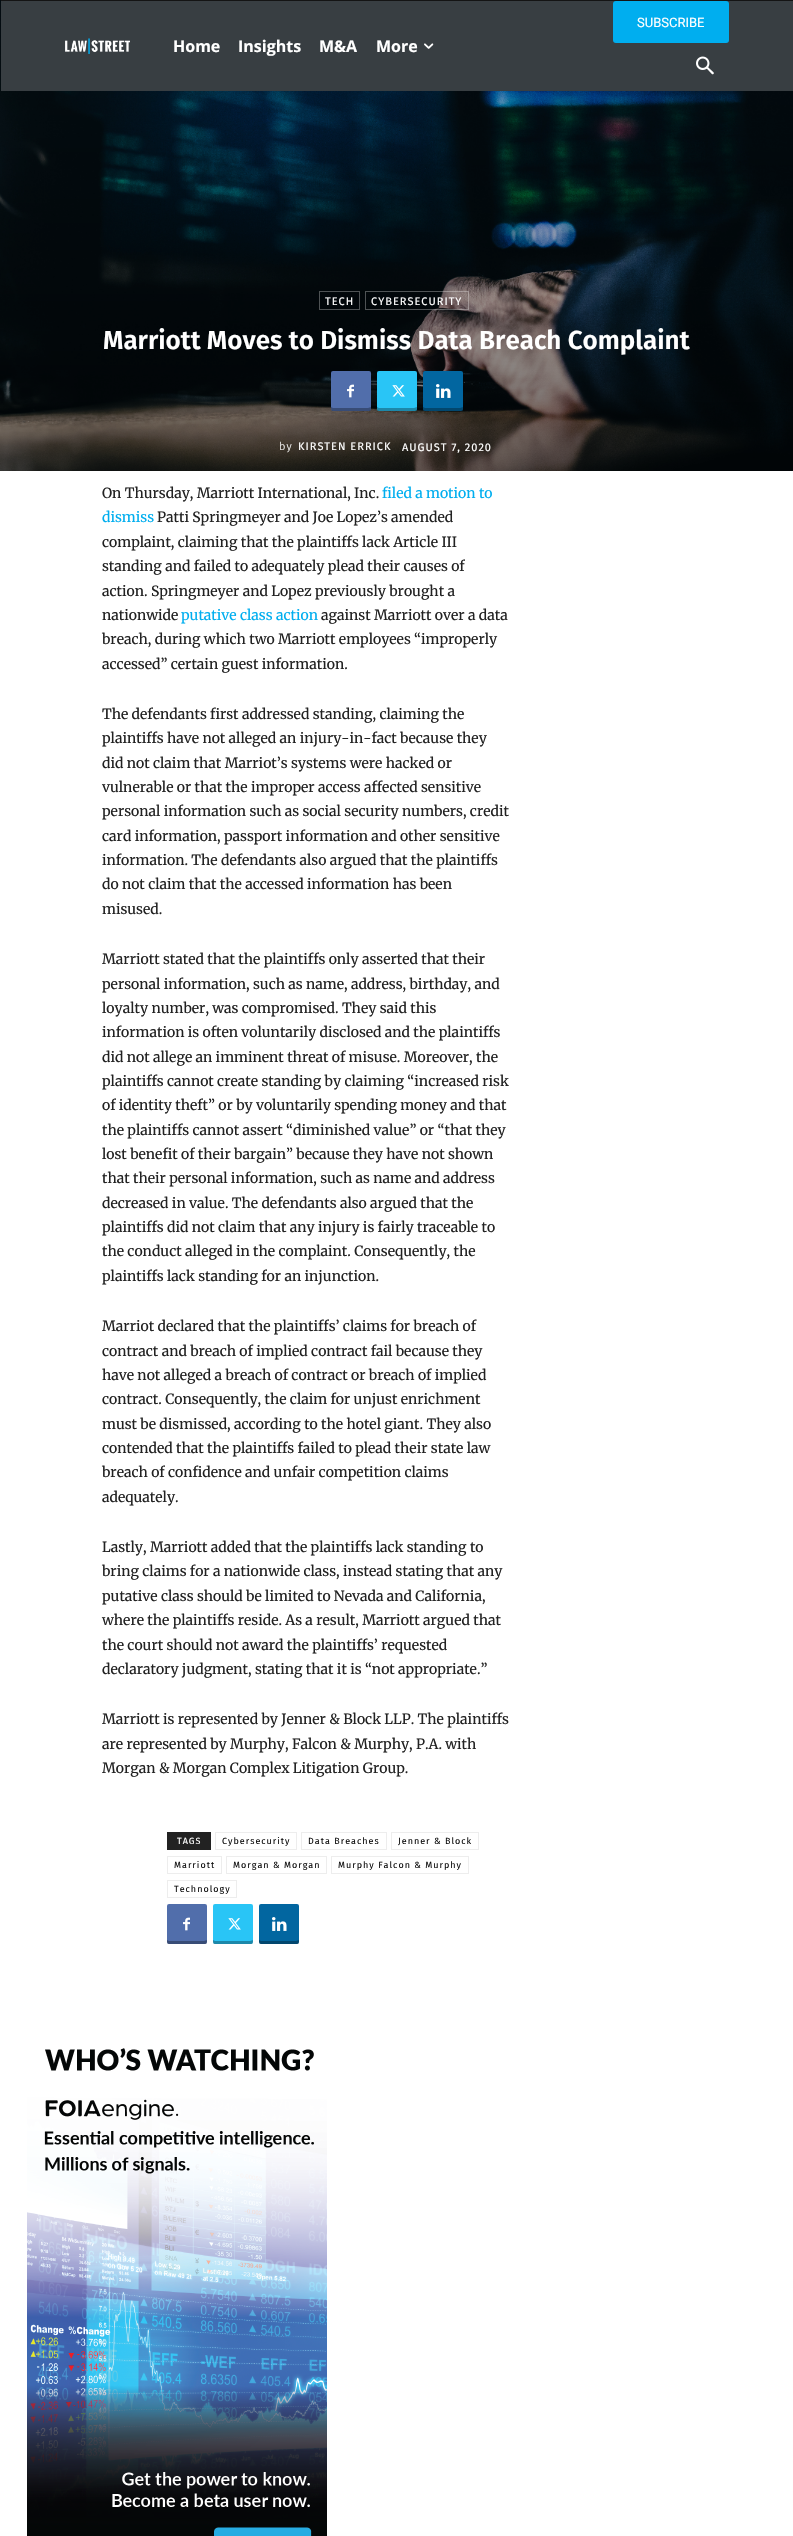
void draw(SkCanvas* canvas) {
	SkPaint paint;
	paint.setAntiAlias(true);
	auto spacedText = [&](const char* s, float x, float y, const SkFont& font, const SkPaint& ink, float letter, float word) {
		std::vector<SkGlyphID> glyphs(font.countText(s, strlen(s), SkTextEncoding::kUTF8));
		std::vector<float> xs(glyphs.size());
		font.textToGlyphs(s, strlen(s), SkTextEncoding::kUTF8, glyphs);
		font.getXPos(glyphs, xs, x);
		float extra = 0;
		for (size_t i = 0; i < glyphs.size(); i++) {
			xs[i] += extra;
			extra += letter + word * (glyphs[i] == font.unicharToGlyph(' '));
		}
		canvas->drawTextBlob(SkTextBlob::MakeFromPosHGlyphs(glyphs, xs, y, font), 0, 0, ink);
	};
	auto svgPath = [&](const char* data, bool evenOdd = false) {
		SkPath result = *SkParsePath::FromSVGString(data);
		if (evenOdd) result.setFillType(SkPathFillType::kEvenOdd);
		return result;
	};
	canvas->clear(0xffffffff);
	canvas->drawImageRect(SkImages::DeferredFromEncodedData(SkData::MakeFromFileName("img4.png")), SkRect::MakeXYWH(0, 0, 793, 471), SkSamplingOptions());
	paint.setColor(0xff141414);
	canvas->drawRect(SkRect::MakeXYWH(1, 0, 792, 1), paint);
	paint.setColor(0xff383e42);
	canvas->drawRect(SkRect::MakeXYWH(1, 1, 792, 90), paint);
	paint.setColor(0xff00aeef);
	canvas->drawRoundRect(SkRect::MakeXYWH(613, 1, 116, 42), 3, 3, paint);
	SkFont f1(fontMgr->matchFamilyStyle("Roboto", SkFontStyle::Normal()), 13);
	f1.setSubpixel(true);
	paint.setColor(0xffffffff);
	canvas->drawString("SUBSCRIBE", 637, 27, f1, paint);
	canvas->drawImageRect(SkImages::DeferredFromEncodedData(SkData::MakeFromFileName("img1.png")), SkRect::MakeXYWH(696, 56, 18, 19), SkSamplingOptions());
	canvas->drawImageRect(SkImages::DeferredFromEncodedData(SkData::MakeFromFileName("img2.png")), SkRect::MakeXYWH(65, 38, 65, 16), SkSamplingOptions());
	SkFont f2(fontMgr->matchFamilyStyle("Open Sans", SkFontStyle::Bold()), 16);
	f2.setSubpixel(true);
	canvas->drawString("Home", 173, 52, f2, paint);
	canvas->drawString("Insights", 238, 52, f2, paint);
	canvas->drawString("M&A", 319, 52, f2, paint);
	canvas->drawString("More", 376, 52, f2, paint);
	canvas->drawImageRect(SkImages::DeferredFromEncodedData(SkData::MakeFromFileName("img3.png")), SkRect::MakeXYWH(424, 43, 10, 6), SkSamplingOptions());
	paint.setStroke(true);
	paint.setStrokeWidth(1);
	paint.setColor(0xff4e5254);
	canvas->drawRect(SkRect::MakeXYWH(319.5, 291.5, 40, 18), paint);
	SkFont f3(fontMgr->matchFamilyStyle("Fira Sans", SkFontStyle::Normal()), 11);
	f3.setSubpixel(true);
	paint.setStroke(false);
	paint.setColor(0xffffffff);
	spacedText("TECH", 325, 305, f3, paint, 1, 0);
	paint.setStroke(true);
	paint.setColor(0x4dffffff);
	canvas->drawRect(SkRect::MakeXYWH(365.5, 291.5, 103, 18), paint);
	paint.setStroke(false);
	paint.setColor(0xffffffff);
	spacedText("CYBERSECURITY", 371, 305, f3, paint, 1, 0);
	SkFont f4(fontMgr->matchFamilyStyle("Fira Sans", SkFontStyle(600, SkFontStyle::kNormal_Width, SkFontStyle::kUpright_Slant)), 26);
	f4.setSubpixel(true);
	canvas->drawString("Marriott Moves to Dismiss Data Breach Complaint", 103, 349, f4, paint);
	paint.setColor(0xff516eab);
	canvas->drawRoundRect(SkRect::MakeXYWH(331, 371, 40, 40), 2, 2, paint);
	canvas->save();
	canvas->clipRect(SkRect::MakeXYWH(331, 371, 40, 40));
	paint.setColor(0x4f000000);
	canvas->drawPath(svgPath("M331 407C331 413 333 411 339 411H363C370 411 371 413 371 406V407L368 408H333Z"), paint);
	canvas->restore();
	canvas->drawImageRect(SkImages::DeferredFromEncodedData(SkData::MakeFromFileName("img5.png")), SkRect::MakeXYWH(347, 384, 7, 14), SkSamplingOptions());
	paint.setColor(0xff29c5f6);
	canvas->drawRoundRect(SkRect::MakeXYWH(377, 371, 40, 40), 2, 2, paint);
	canvas->save();
	canvas->clipRect(SkRect::MakeXYWH(377, 371, 40, 40));
	paint.setColor(0x4f000000);
	canvas->drawPath(svgPath("M377 407C377 413 379 411 385 411H409C416 411 417 413 417 406V407L414 408H379Z"), paint);
	canvas->restore();
	canvas->drawImageRect(SkImages::DeferredFromEncodedData(SkData::MakeFromFileName("img6.png")), SkRect::MakeXYWH(392, 385, 13, 12), SkSamplingOptions());
	paint.setColor(0xff0266a0);
	canvas->drawRoundRect(SkRect::MakeXYWH(423, 371, 40, 40), 2, 2, paint);
	canvas->save();
	canvas->clipRect(SkRect::MakeXYWH(423, 371, 40, 40));
	paint.setColor(0x4f000000);
	canvas->drawPath(svgPath("M423 407C423 413 425 411 431 411H455C462 411 463 413 463 406V407L460 408H425Z"), paint);
	canvas->restore();
	canvas->drawImageRect(SkImages::DeferredFromEncodedData(SkData::MakeFromFileName("img7.png")), SkRect::MakeXYWH(436, 384, 15, 14), SkSamplingOptions());
	SkFont f5(fontMgr->matchFamilyStyle("Fira Sans", SkFontStyle(300, SkFontStyle::kNormal_Width, SkFontStyle::kUpright_Slant)), 11);
	f5.setSubpixel(true);
	paint.setColor(0xffffffff);
	spacedText("by", 279, 450, f5, paint, 1, 0);
	spacedText("KIRSTEN ERRICK", 298, 450, f3, paint, 1, 0);
	spacedText("AUGUST 7, 2020", 402, 451, f3, paint, 1, 0);
	SkFont f6(fontMgr->matchFamilyStyle("Merriweather", SkFontStyle(300, SkFontStyle::kNormal_Width, SkFontStyle::kUpright_Slant)), 14);
	f6.setSubpixel(true);
	paint.setColor(0xff222222);
	canvas->drawString("On Thursday, Marriott International, Inc.", 102, 498, f6, paint);
	paint.setColor(0xff00aeef);
	canvas->drawString("filed a motion to", 382, 498, f6, paint);
	canvas->drawString("dismiss", 102, 522, f6, paint);
	paint.setColor(0xff222222);
	canvas->drawString("Patti Springmeyer and Joe Lopez’s amended", 157, 522, f6, paint);
	canvas->drawString("complaint, claiming that the plaintiffs lack Article III", 102, 547, f6, paint);
	canvas->drawString("standing and failed to adequately plead their causes of", 102, 571, f6, paint);
	canvas->drawString("action. Springmeyer and Lopez previously brought a", 102, 596, f6, paint);
	canvas->drawString("nationwide", 102, 620, f6, paint);
	paint.setColor(0xff00aeef);
	canvas->drawString("putative class action", 181, 620, f6, paint);
	paint.setColor(0xff222222);
	canvas->drawString("against Marriott over a data", 321, 620, f6, paint);
	canvas->drawString("breach, during which two Marriott employees “improperly", 102, 644, f6, paint);
	canvas->drawString("accessed” certain guest information.", 102, 669, f6, paint);
	canvas->drawString("The defendants first addressed standing, claiming the", 102, 719, f6, paint);
	canvas->drawString("plaintiffs have not alleged an injury-in-fact because they", 102, 743, f6, paint);
	canvas->drawString("did not claim that Marriot’s systems were hacked or", 102, 768, f6, paint);
	canvas->drawString("vulnerable or that the improper access affected sensitive", 102, 792, f6, paint);
	canvas->drawString("personal information such as social security numbers, credit", 102, 816, f6, paint);
	canvas->drawString("card information, passport information and other sensitive", 102, 841, f6, paint);
	canvas->drawString("information. The defendants also argued that the plaintiffs", 102, 865, f6, paint);
	canvas->drawString("do not claim that the accessed information has been", 102, 889, f6, paint);
	canvas->drawString("misused.", 102, 914, f6, paint);
	canvas->drawString("Marriott stated that the plaintiffs only asserted that their", 102, 964, f6, paint);
	canvas->drawString("personal information, such as name, address, birthday, and", 102, 989, f6, paint);
	canvas->drawString("loyalty number, was compromised. They said this", 102, 1013, f6, paint);
	canvas->drawString("information is often voluntarily disclosed and the plaintiffs", 102, 1037, f6, paint);
	canvas->drawString("did not allege an imminent threat of misuse. Moreover, the", 102, 1062, f6, paint);
	canvas->drawString("plaintiffs cannot create standing by claiming “increased risk", 102, 1086, f6, paint);
	canvas->drawString("of identity theft” or by voluntarily spending money and that", 102, 1110, f6, paint);
	canvas->drawString("the plaintiffs cannot assert “diminished value” or “that they", 102, 1135, f6, paint);
	canvas->drawString("lost benefit of their bargain” because they have not shown", 102, 1159, f6, paint);
	canvas->drawString("that their personal information, such as name and address", 102, 1183, f6, paint);
	canvas->drawString("decreased in value. The defendants also argued that the", 102, 1208, f6, paint);
	canvas->drawString("plaintiffs did not claim that any injury is fairly traceable to", 102, 1232, f6, paint);
	canvas->drawString("the conduct alleged in the complaint. Consequently, the", 102, 1256, f6, paint);
	canvas->drawString("plaintiffs lack standing for an injunction.", 102, 1281, f6, paint);
	canvas->drawString("Marriot declared that the plaintiffs’ claims for breach of", 102, 1331, f6, paint);
	canvas->drawString("contract and breach of implied contract fail because they", 102, 1356, f6, paint);
	canvas->drawString("have not alleged a breach of contract or breach of implied", 102, 1380, f6, paint);
	canvas->drawString("contract. Consequently, the claim for unjust enrichment", 102, 1404, f6, paint);
	canvas->drawString("must be dismissed, according to the hotel giant. They also", 102, 1429, f6, paint);
	canvas->drawString("contended that the plaintiffs failed to plead their state law", 102, 1453, f6, paint);
	canvas->drawString("breach of confidence and unfair competition claims", 102, 1477, f6, paint);
	canvas->drawString("adequately.", 102, 1502, f6, paint);
	canvas->drawString("Lastly, Marriott added that the plaintiffs lack standing to", 102, 1552, f6, paint);
	canvas->drawString("bring claims for a nationwide class, instead stating that any", 102, 1576, f6, paint);
	canvas->drawString("putative class should be limited to Nevada and California,", 102, 1601, f6, paint);
	canvas->drawString("where the plaintiffs reside. As a result, Marriott argued that", 102, 1625, f6, paint);
	canvas->drawString("the court should not award the plaintiffs’ requested", 102, 1650, f6, paint);
	canvas->drawString("declaratory judgment, stating that it is “not appropriate.”", 102, 1674, f6, paint);
	canvas->drawString("Marriott is represented by Jenner & Block LLP. The plaintiffs", 102, 1724, f6, paint);
	canvas->drawString("are represented by Murphy, Falcon & Murphy, P.A. with", 102, 1749, f6, paint);
	canvas->drawString("Morgan & Morgan Complex Litigation Group.", 102, 1773, f6, paint);
	canvas->drawRect(SkRect::MakeXYWH(167, 1832, 44, 18), paint);
	SkFont f7(fontMgr->matchFamilyStyle("Fira Sans", SkFontStyle::Normal()), 9);
	f7.setSubpixel(true);
	paint.setColor(0xffffffff);
	spacedText("TAGS", 177, 1844, f7, paint, 1, 0);
	paint.setStroke(true);
	paint.setColor(0xffededed);
	canvas->drawRect(SkRect::MakeXYWH(215.5, 1832.5, 81, 17), paint);
	paint.setStroke(false);
	paint.setColor(0xff111111);
	spacedText("Cybersecurity", 222, 1844, f7, paint, 1, 0);
	paint.setStroke(true);
	paint.setColor(0xffededed);
	canvas->drawRect(SkRect::MakeXYWH(301.5, 1832.5, 85, 17), paint);
	paint.setStroke(false);
	paint.setColor(0xff111111);
	spacedText("Data Breaches", 308, 1844, f7, paint, 1, 0);
	paint.setStroke(true);
	paint.setColor(0xffededed);
	canvas->drawRect(SkRect::MakeXYWH(391.5, 1832.5, 87, 17), paint);
	paint.setStroke(false);
	paint.setColor(0xff111111);
	spacedText("Jenner & Block", 398, 1844, f7, paint, 1, 0);
	paint.setStroke(true);
	paint.setColor(0xffededed);
	canvas->drawRect(SkRect::MakeXYWH(167.5, 1856.5, 54, 17), paint);
	paint.setStroke(false);
	paint.setColor(0xff111111);
	spacedText("Marriott", 174, 1868, f7, paint, 1, 0);
	paint.setStroke(true);
	paint.setColor(0xffededed);
	canvas->drawRect(SkRect::MakeXYWH(226.5, 1856.5, 100, 17), paint);
	paint.setStroke(false);
	paint.setColor(0xff111111);
	spacedText("Morgan & Morgan", 233, 1868, f7, paint, 1, 0);
	paint.setStroke(true);
	paint.setColor(0xffededed);
	canvas->drawRect(SkRect::MakeXYWH(331.5, 1856.5, 137, 17), paint);
	paint.setStroke(false);
	paint.setColor(0xff111111);
	spacedText("Murphy Falcon & Murphy", 338, 1868, f7, paint, 1, 0);
	paint.setStroke(true);
	paint.setColor(0xffededed);
	canvas->drawRect(SkRect::MakeXYWH(167.5, 1880.5, 69, 17), paint);
	paint.setStroke(false);
	paint.setColor(0xff111111);
	spacedText("Technology", 174, 1892, f7, paint, 1, 0);
	paint.setColor(0xff516eab);
	canvas->drawRoundRect(SkRect::MakeXYWH(167, 1904, 40, 40), 2, 2, paint);
	canvas->save();
	canvas->clipRect(SkRect::MakeXYWH(167, 1904, 40, 40));
	paint.setColor(0x4f000000);
	canvas->drawPath(svgPath("M167 1940C167 1946 169 1944 175 1944H199C206 1944 207 1946 207 1939V1940L204 1941H169Z"), paint);
	canvas->restore();
	canvas->drawImageRect(SkImages::DeferredFromEncodedData(SkData::MakeFromFileName("img5.png")), SkRect::MakeXYWH(183, 1917, 7, 14), SkSamplingOptions());
	paint.setColor(0xff29c5f6);
	canvas->drawRoundRect(SkRect::MakeXYWH(213, 1904, 40, 40), 2, 2, paint);
	canvas->save();
	canvas->clipRect(SkRect::MakeXYWH(213, 1904, 40, 40));
	paint.setColor(0x4f000000);
	canvas->drawPath(svgPath("M213 1940C213 1946 215 1944 221 1944H245C252 1944 253 1946 253 1939V1940L250 1941H215Z"), paint);
	canvas->restore();
	canvas->drawImageRect(SkImages::DeferredFromEncodedData(SkData::MakeFromFileName("img6.png")), SkRect::MakeXYWH(228, 1918, 13, 12), SkSamplingOptions());
	paint.setColor(0xff0266a0);
	canvas->drawRoundRect(SkRect::MakeXYWH(259, 1904, 40, 40), 2, 2, paint);
	canvas->save();
	canvas->clipRect(SkRect::MakeXYWH(259, 1904, 40, 40));
	paint.setColor(0x4f000000);
	canvas->drawPath(svgPath("M259 1940C259 1946 261 1944 267 1944H291C298 1944 299 1946 299 1939V1940L296 1941H261Z"), paint);
	canvas->restore();
	canvas->drawImageRect(SkImages::DeferredFromEncodedData(SkData::MakeFromFileName("img7.png")), SkRect::MakeXYWH(272, 1917, 15, 14), SkSamplingOptions());
	canvas->drawImageRect(SkImages::DeferredFromEncodedData(SkData::MakeFromFileName("img8.png")), SkRect::MakeXYWH(27, 2048, 300, 488), SkSamplingOptions());
}
